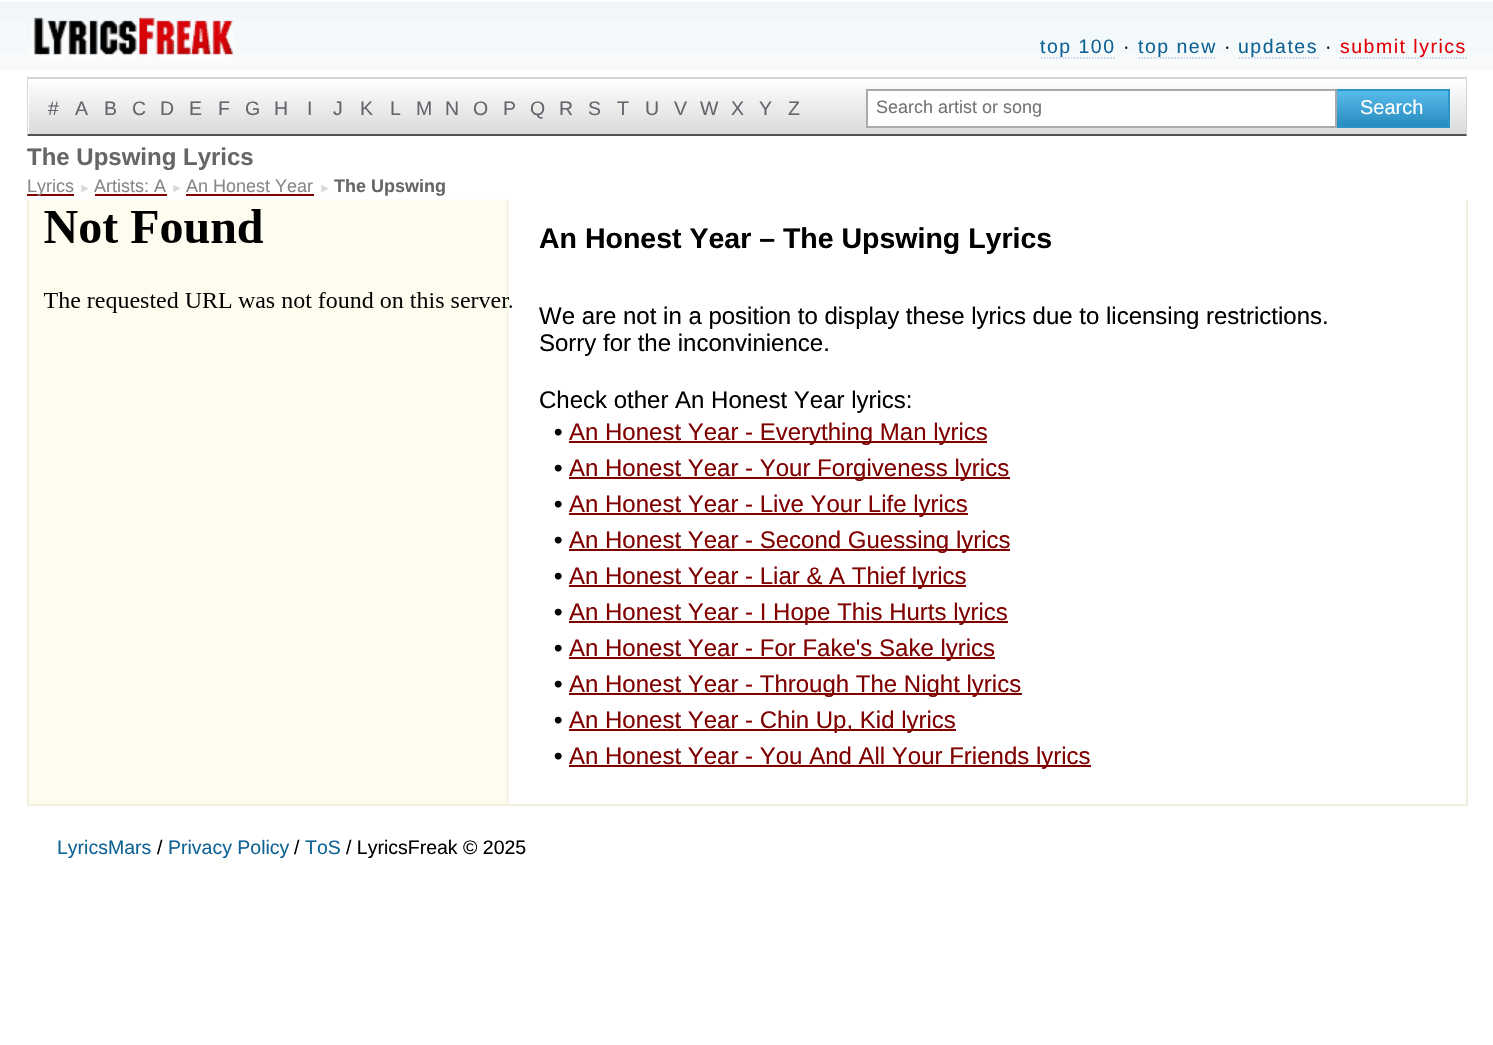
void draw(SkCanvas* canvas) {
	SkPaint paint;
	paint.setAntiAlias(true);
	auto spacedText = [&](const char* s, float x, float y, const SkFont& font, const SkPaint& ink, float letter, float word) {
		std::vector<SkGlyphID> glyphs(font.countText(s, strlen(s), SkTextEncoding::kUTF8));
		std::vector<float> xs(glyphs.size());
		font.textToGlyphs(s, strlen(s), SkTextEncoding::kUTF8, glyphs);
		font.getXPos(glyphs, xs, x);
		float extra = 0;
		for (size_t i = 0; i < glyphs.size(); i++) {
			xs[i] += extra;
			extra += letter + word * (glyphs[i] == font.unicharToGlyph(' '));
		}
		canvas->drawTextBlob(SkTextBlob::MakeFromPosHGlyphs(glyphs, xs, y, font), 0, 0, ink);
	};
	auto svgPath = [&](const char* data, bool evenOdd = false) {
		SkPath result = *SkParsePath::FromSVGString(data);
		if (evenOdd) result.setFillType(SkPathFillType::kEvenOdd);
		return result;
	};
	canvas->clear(0xffffffff);
	canvas->drawImageRect(SkImages::DeferredFromEncodedData(SkData::MakeFromFileName("img1.png")), SkRect::MakeXYWH(0, 1, 1493, 70), SkSamplingOptions());
	canvas->drawImageRect(SkImages::DeferredFromEncodedData(SkData::MakeFromFileName("img2.png")), SkRect::MakeXYWH(27, 17, 211, 44), SkSamplingOptions());
	paint.setStroke(true);
	paint.setStrokeWidth(1.5);
	paint.setColor(0xffb2c7e7);
	paint.setPathEffect(SkDashPathEffect::Make({{1.5f, 1.5f}}, 0));
	canvas->drawPath(svgPath("M1041 58H1116"), paint);
	paint.setPathEffect(nullptr);
	SkFont f1(fontMgr->matchFamilyStyle("Liberation Sans", SkFontStyle::Normal()), 19.5);
	f1.setSubpixel(true);
	paint.setStroke(false);
	paint.setColor(0xff0f6294);
	spacedText("top 100", 1040, 53, f1, paint, 1.5, 0);
	paint.setColor(0xff000000);
	spacedText("·", 1123, 53, f1, paint, 1.5, 0);
	paint.setStroke(true);
	paint.setColor(0xffb2c7e7);
	paint.setPathEffect(SkDashPathEffect::Make({{1.5f, 1.5f}}, 0));
	canvas->drawPath(svgPath("M1138.5 58H1216.5"), paint);
	paint.setPathEffect(nullptr);
	paint.setStroke(false);
	paint.setColor(0xff0f6294);
	spacedText("top new", 1138, 53, f1, paint, 1.5, 0);
	paint.setColor(0xff000000);
	spacedText("·", 1224, 53, f1, paint, 1.5, 0);
	paint.setStroke(true);
	paint.setColor(0xffb2c7e7);
	paint.setPathEffect(SkDashPathEffect::Make({{1.5f, 1.5f}}, 0));
	canvas->drawPath(svgPath("M1239 58H1318.5"), paint);
	paint.setPathEffect(nullptr);
	paint.setStroke(false);
	paint.setColor(0xff0f6294);
	spacedText("updates", 1238, 53, f1, paint, 1.5, 0);
	paint.setColor(0xff000000);
	spacedText("·", 1325, 53, f1, paint, 1.5, 0);
	paint.setStroke(true);
	paint.setColor(0xffb2c7e7);
	paint.setPathEffect(SkDashPathEffect::Make({{1.5f, 1.5f}}, 0));
	canvas->drawPath(svgPath("M1339.5 58H1467"), paint);
	paint.setPathEffect(nullptr);
	paint.setStroke(false);
	paint.setColor(0xffe00107);
	spacedText("submit lyrics", 1340, 53, f1, paint, 1.5, 0);
	{
		const SkColor colors[] = {0xffffffff, 0xffdadada};
		const float stops[] = {0, 1};
		const SkPoint ends[] = {{747, 78}, {747, 134}};
		paint.setShader(SkGradientShader::MakeLinear(ends, colors, stops, 2, SkTileMode::kClamp));
		paint.setAlpha(255);
	}
	canvas->drawRect(SkRect::MakeXYWH(29, 82, 1437, 52), paint);
	paint.setShader(nullptr);
	paint.setColor(0xffd6d6d6);
	canvas->drawRect(SkRect::MakeXYWH(27, 77, 1440, 2), paint);
	canvas->drawPath(svgPath("M1467 76V136L1466 134V78Z"), paint);
	paint.setColor(0xff525252);
	canvas->drawPath(svgPath("M1467 136H27L28 134H1466Z"), paint);
	paint.setColor(0xffd6d6d6);
	canvas->drawPath(svgPath("M27 136V76L28 78V134Z"), paint);
	paint.setColor(0xff64646c);
	canvas->drawString("#", 48, 115, f1, paint);
	canvas->drawString("A", 75, 115, f1, paint);
	canvas->drawString("B", 104, 115, f1, paint);
	canvas->drawString("C", 132, 115, f1, paint);
	canvas->drawString("D", 160, 115, f1, paint);
	canvas->drawString("E", 189, 115, f1, paint);
	canvas->drawString("F", 218, 115, f1, paint);
	canvas->drawString("G", 245, 115, f1, paint);
	canvas->drawString("H", 274, 115, f1, paint);
	canvas->drawString("I", 307, 115, f1, paint);
	canvas->drawString("J", 333, 115, f1, paint);
	canvas->drawString("K", 360, 115, f1, paint);
	canvas->drawString("L", 390, 115, f1, paint);
	canvas->drawString("M", 416, 115, f1, paint);
	canvas->drawString("N", 445, 115, f1, paint);
	canvas->drawString("O", 473, 115, f1, paint);
	canvas->drawString("P", 503, 115, f1, paint);
	canvas->drawString("Q", 530, 115, f1, paint);
	canvas->drawString("R", 559, 115, f1, paint);
	canvas->drawString("S", 588, 115, f1, paint);
	canvas->drawString("T", 617, 115, f1, paint);
	canvas->drawString("U", 645, 115, f1, paint);
	canvas->drawString("V", 674, 115, f1, paint);
	canvas->drawString("W", 700, 115, f1, paint);
	canvas->drawString("X", 731, 115, f1, paint);
	canvas->drawString("Y", 759, 115, f1, paint);
	canvas->drawString("Z", 788, 115, f1, paint);
	paint.setColor(0xffffffff);
	canvas->drawRect(SkRect::MakeXYWH(867, 90, 469, 37), paint);
	paint.setStroke(true);
	paint.setStrokeWidth(2);
	paint.setColor(0xffaaaaaa);
	canvas->drawRect(SkRect::MakeXYWH(867, 90, 469, 37), paint);
	SkFont f2(fontMgr->matchFamilyStyle("Liberation Sans", SkFontStyle::Normal()), 18);
	f2.setSubpixel(true);
	paint.setStroke(false);
	paint.setColor(0xff757575);
	canvas->drawString("Search artist or song", 876, 113, f2, paint);
	{
		const SkColor colors[] = {0xff58bced, 0xff298cbe};
		const float stops[] = {0, 1};
		const SkPoint ends[] = {{1392, 90}, {1392, 126}};
		paint.setShader(SkGradientShader::MakeLinear(ends, colors, stops, 2, SkTileMode::kClamp));
		paint.setAlpha(255);
	}
	canvas->drawRect(SkRect::MakeXYWH(1337, 91, 111, 35), paint);
	paint.setShader(nullptr);
	paint.setColor(0xff2c95ca);
	canvas->drawRect(SkRect::MakeXYWH(1337, 89, 112, 2), paint);
	canvas->drawRect(SkRect::MakeXYWH(1448, 89, 2, 39), paint);
	canvas->drawRect(SkRect::MakeXYWH(1337, 126, 112, 2), paint);
	SkFont f3(fontMgr->matchFamilyStyle("Liberation Sans", SkFontStyle::Normal()), 20);
	f3.setSubpixel(true);
	paint.setColor(0xffffffff);
	canvas->drawString("Search", 1360, 114, f3, paint);
	SkFont f4(fontMgr->matchFamilyStyle("Liberation Sans", SkFontStyle::Bold()), 24);
	f4.setSubpixel(true);
	paint.setColor(0xff666666);
	canvas->drawString("The Upswing Lyrics", 27, 165, f4, paint);
	paint.setColor(0xff800000);
	canvas->drawRect(SkRect::MakeXYWH(27, 194, 47, 2), paint);
	paint.setColor(0xff888888);
	canvas->drawString("Lyrics", 27, 192, f2, paint);
	SkFont f5(fontMgr->matchFamilyStyle("Liberation Sans", SkFontStyle::Normal()), 12);
	f5.setSubpixel(true);
	paint.setColor(0xffd9d9d9);
	canvas->drawString("►", 79, 192, f5, paint);
	paint.setColor(0xff888888);
	canvas->drawString("Artists: A", 94, 192, f2, paint);
	paint.setColor(0xff800000);
	canvas->drawRect(SkRect::MakeXYWH(95, 194, 72, 2), paint);
	paint.setColor(0xffd9d9d9);
	canvas->drawString("►", 171, 192, f5, paint);
	paint.setColor(0xff888888);
	canvas->drawString("An Honest Year", 186, 192, f2, paint);
	paint.setColor(0xff800000);
	canvas->drawRect(SkRect::MakeXYWH(186, 194, 128, 2), paint);
	paint.setColor(0xffd9d9d9);
	canvas->drawString("►", 319, 192, f5, paint);
	SkFont f6(fontMgr->matchFamilyStyle("Liberation Sans", SkFontStyle::Bold()), 18);
	f6.setSubpixel(true);
	paint.setColor(0xff666666);
	canvas->drawString("The Upswing", 334, 192, f6, paint);
	canvas->drawImageRect(SkImages::DeferredFromEncodedData(SkData::MakeFromFileName("img3.png")), SkRect::MakeXYWH(28, 199, 481, 605), SkSamplingOptions());
	paint.setColor(0xfff0efdb);
	canvas->drawRect(SkRect::MakeXYWH(1466, 200, 2, 606), paint);
	canvas->drawRect(SkRect::MakeXYWH(27, 804, 1440, 2), paint);
	canvas->drawRect(SkRect::MakeXYWH(27, 200, 2, 606), paint);
	canvas->drawImageRect(SkImages::DeferredFromEncodedData(SkData::MakeFromFileName("img4.png")), SkRect::MakeXYWH(43, 209, 470, 104), SkSamplingOptions());
	SkFont f7(fontMgr->matchFamilyStyle("Liberation Sans", SkFontStyle::Bold()), 28.5);
	f7.setSubpixel(true);
	paint.setColor(0xff000000);
	canvas->drawString("An Honest Year – The Upswing Lyrics", 539, 248, f7, paint);
	SkFont f8(fontMgr->matchFamilyStyle("Liberation Sans", SkFontStyle::Normal()), 24);
	f8.setSubpixel(true);
	canvas->drawString("We are not in a position to display these lyrics due to licensing restrictions.", 539, 324, f8, paint);
	canvas->drawString("Sorry for the inconvinience.", 539, 351, f8, paint);
	canvas->drawString("Check other An Honest Year lyrics:", 539, 408, f8, paint);
	canvas->drawString("•", 554, 440, f4, paint);
	paint.setColor(0xff800000);
	canvas->drawRect(SkRect::MakeXYWH(569, 441, 418, 2), paint);
	canvas->drawString("An Honest Year - Everything Man lyrics", 569, 440, f8, paint);
	paint.setColor(0xff000000);
	canvas->drawString("•", 554, 476, f4, paint);
	paint.setColor(0xff800000);
	canvas->drawRect(SkRect::MakeXYWH(569, 477, 441, 2), paint);
	canvas->drawString("An Honest Year - Your Forgiveness lyrics", 569, 476, f8, paint);
	paint.setColor(0xff000000);
	canvas->drawString("•", 554, 512, f4, paint);
	paint.setColor(0xff800000);
	canvas->drawRect(SkRect::MakeXYWH(569, 513, 399, 2), paint);
	canvas->drawString("An Honest Year - Live Your Life lyrics", 569, 512, f8, paint);
	paint.setColor(0xff000000);
	canvas->drawString("•", 554, 548, f4, paint);
	paint.setColor(0xff800000);
	canvas->drawRect(SkRect::MakeXYWH(569, 549, 441, 2), paint);
	canvas->drawString("An Honest Year - Second Guessing lyrics", 569, 548, f8, paint);
	paint.setColor(0xff000000);
	canvas->drawString("•", 554, 584, f4, paint);
	paint.setColor(0xff800000);
	canvas->drawRect(SkRect::MakeXYWH(569, 585, 397, 2), paint);
	canvas->drawString("An Honest Year - Liar & A Thief lyrics", 569, 584, f8, paint);
	paint.setColor(0xff000000);
	canvas->drawString("•", 554, 620, f4, paint);
	paint.setColor(0xff800000);
	canvas->drawRect(SkRect::MakeXYWH(569, 621, 439, 2), paint);
	canvas->drawString("An Honest Year - I Hope This Hurts lyrics", 569, 620, f8, paint);
	paint.setColor(0xff000000);
	canvas->drawString("•", 554, 656, f4, paint);
	paint.setColor(0xff800000);
	canvas->drawRect(SkRect::MakeXYWH(569, 657, 426, 2), paint);
	canvas->drawString("An Honest Year - For Fake's Sake lyrics", 569, 656, f8, paint);
	paint.setColor(0xff000000);
	canvas->drawString("•", 554, 692, f4, paint);
	paint.setColor(0xff800000);
	canvas->drawRect(SkRect::MakeXYWH(569, 693, 453, 2), paint);
	canvas->drawString("An Honest Year - Through The Night lyrics", 569, 692, f8, paint);
	paint.setColor(0xff000000);
	canvas->drawString("•", 554, 728, f4, paint);
	paint.setColor(0xff800000);
	canvas->drawRect(SkRect::MakeXYWH(569, 729, 387, 2), paint);
	canvas->drawString("An Honest Year - Chin Up, Kid lyrics", 569, 728, f8, paint);
	paint.setColor(0xff000000);
	canvas->drawString("•", 554, 764, f4, paint);
	paint.setColor(0xff800000);
	canvas->drawRect(SkRect::MakeXYWH(569, 765, 522, 2), paint);
	canvas->drawString("An Honest Year - You And All Your Friends lyrics", 569, 764, f8, paint);
	paint.setColor(0xff0f6294);
	canvas->drawString("LyricsMars", 57, 854, f1, paint);
	paint.setColor(0xff000000);
	canvas->drawString("/", 157, 854, f1, paint);
	paint.setColor(0xff0f6294);
	canvas->drawString("Privacy Policy", 168, 854, f1, paint);
	paint.setColor(0xff000000);
	canvas->drawString("/", 294, 854, f1, paint);
	paint.setColor(0xff0f6294);
	canvas->drawString("ToS", 305, 854, f1, paint);
	paint.setColor(0xff000000);
	canvas->drawString("/ LyricsFreak © 2025", 346, 854, f1, paint);
}
